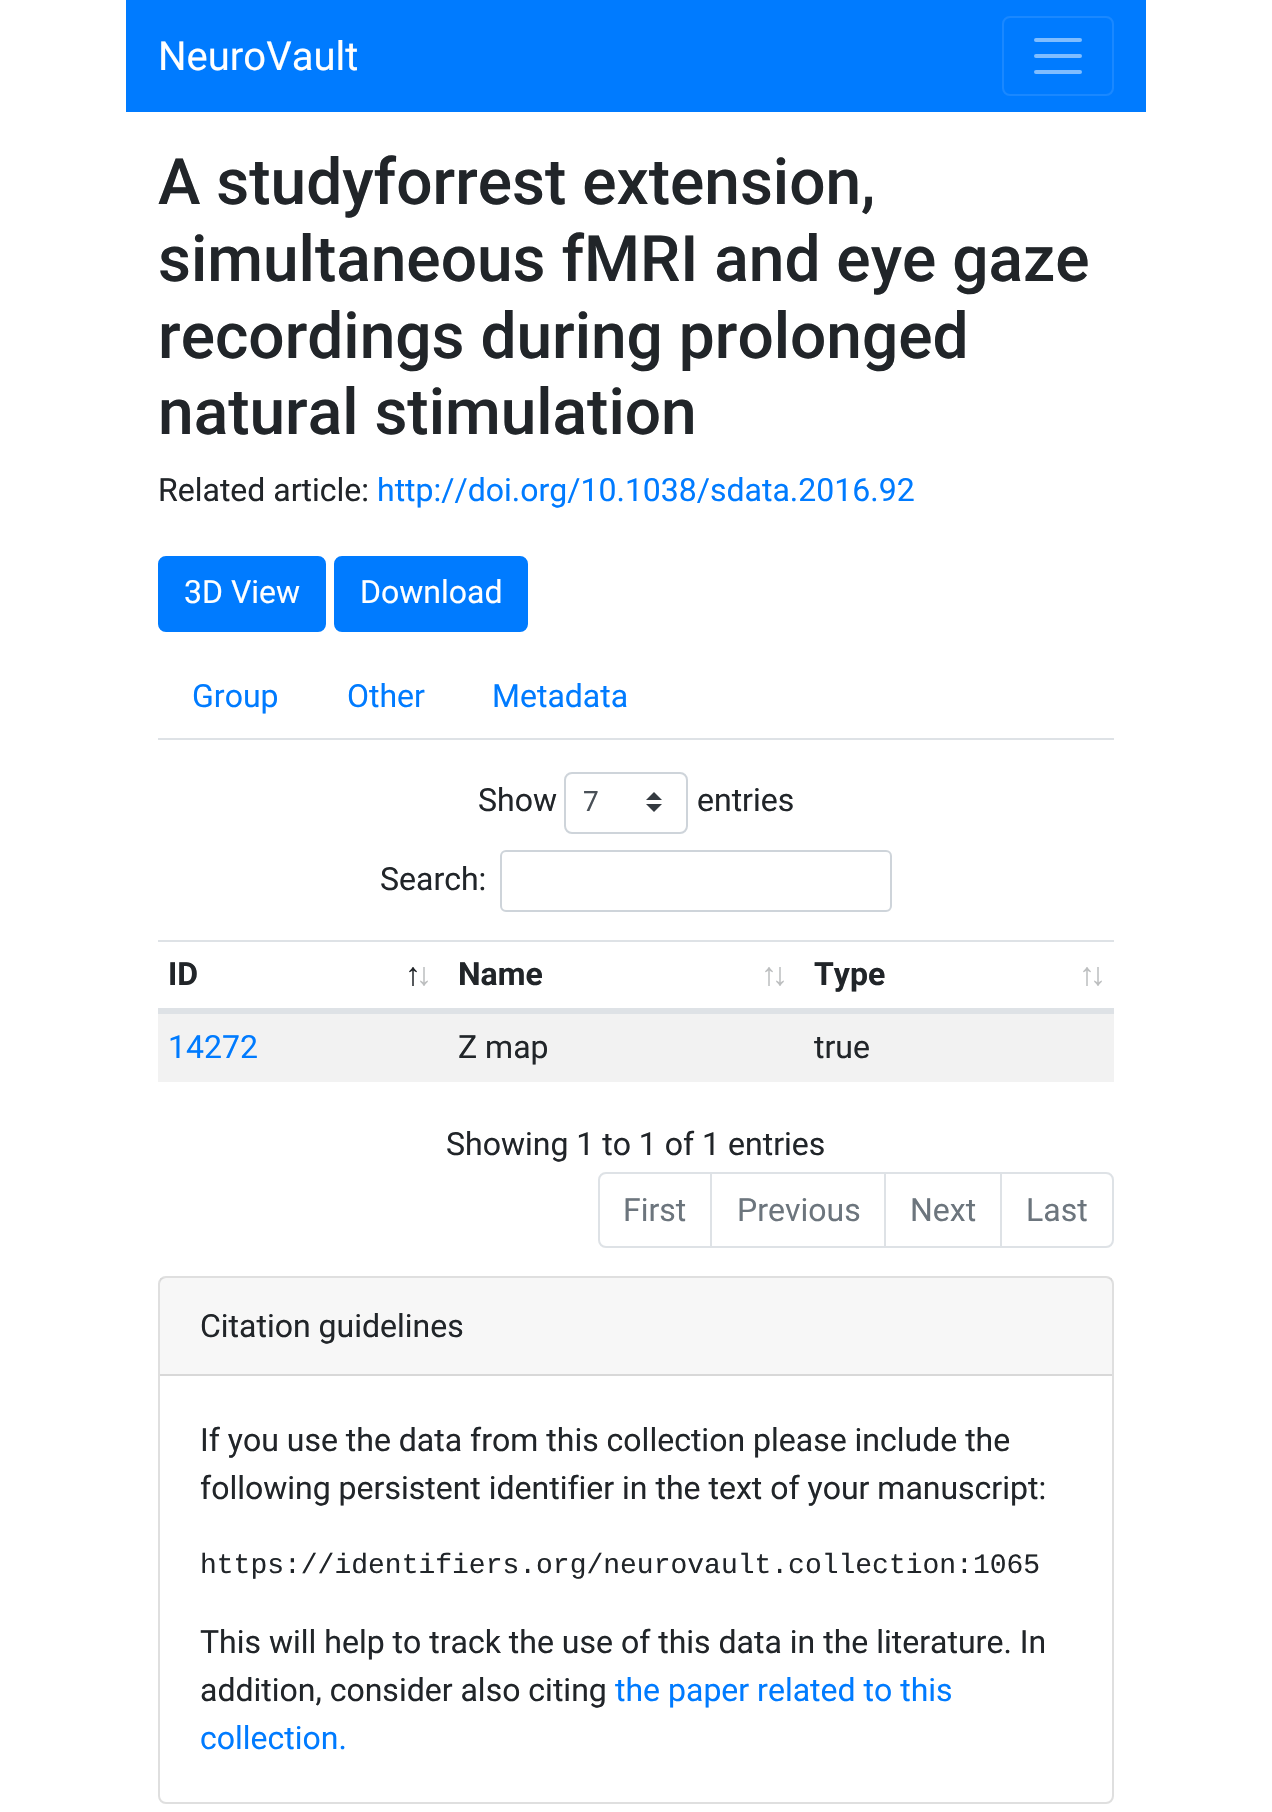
void draw(SkCanvas* canvas) {
	SkPaint paint;
	paint.setAntiAlias(true);
	auto svgPath = [&](const char* data, bool evenOdd = false) {
		SkPath result = *SkParsePath::FromSVGString(data);
		if (evenOdd) result.setFillType(SkPathFillType::kEvenOdd);
		return result;
	};
	canvas->clear(0xffffffff);
	paint.setColor(0xff007bff);
	canvas->drawRect(SkRect::MakeXYWH(126, 0, 1020, 112), paint);
	SkFont f1(fontMgr->matchFamilyStyle("Roboto", SkFontStyle::Normal()), 40);
	f1.setSubpixel(true);
	paint.setColor(0xffffffff);
	canvas->drawString("NeuroVault", 158, 70, f1, paint);
	paint.setStroke(true);
	paint.setStrokeWidth(2);
	paint.setColor(0xff1a88ff);
	canvas->drawRoundRect(SkRect::MakeXYWH(1003, 17, 110, 78), 7, 7, paint);
	paint.setStrokeWidth(4);
	paint.setStrokeCap(SkPaint::kRound_Cap);
	paint.setColor(0xff80bdff);
	canvas->drawPath(svgPath("M1036 40H1080M1036 56H1080M1036 72H1080"), paint);
	SkFont f2(fontMgr->matchFamilyStyle("Roboto", SkFontStyle(500, SkFontStyle::kNormal_Width, SkFontStyle::kUpright_Slant)), 64);
	f2.setSubpixel(true);
	paint.setStroke(false);
	paint.setColor(0xff212529);
	canvas->drawString("A studyforrest extension,", 158, 204, f2, paint);
	canvas->drawString("simultaneous fMRI and eye gaze", 158, 281, f2, paint);
	canvas->drawString("recordings during prolonged", 158, 358, f2, paint);
	canvas->drawString("natural stimulation", 158, 434, f2, paint);
	SkFont f3(fontMgr->matchFamilyStyle("Roboto", SkFontStyle::Normal()), 32);
	f3.setSubpixel(true);
	canvas->drawString("Related article:", 158, 501, f3, paint);
	paint.setColor(0xff007bff);
	canvas->drawString("http://doi.org/10.1038/sdata.2016.92", 377, 501, f3, paint);
	canvas->drawRoundRect(SkRect::MakeXYWH(159, 557, 166, 74), 7, 7, paint);
	paint.setStroke(true);
	paint.setStrokeWidth(2);
	paint.setStrokeCap(SkPaint::kButt_Cap);
	canvas->drawRoundRect(SkRect::MakeXYWH(159, 557, 166, 74), 7, 7, paint);
	paint.setStroke(false);
	paint.setColor(0xffffffff);
	canvas->drawString("3D View", 184, 603, f3, paint);
	paint.setColor(0xff007bff);
	canvas->drawRoundRect(SkRect::MakeXYWH(335, 557, 192, 74), 7, 7, paint);
	paint.setStroke(true);
	canvas->drawRoundRect(SkRect::MakeXYWH(335, 557, 192, 74), 7, 7, paint);
	paint.setStroke(false);
	paint.setColor(0xffffffff);
	canvas->drawString("Download", 360, 603, f3, paint);
	paint.setColor(0xffdee2e6);
	canvas->drawRect(SkRect::MakeXYWH(158, 738, 956, 2), paint);
	paint.setColor(0xff007bff);
	canvas->drawString("Group", 192, 707, f3, paint);
	canvas->drawString("Other", 347, 707, f3, paint);
	canvas->drawString("Metadata", 492, 707, f3, paint);
	paint.setColor(0xff212529);
	canvas->drawString("Show", 478, 811, f3, paint);
	paint.setColor(0xff343a40);
	canvas->drawPath(svgPath("M654 792L646 800H662ZM654 812L646 804H662Z"), paint);
	paint.setStroke(true);
	paint.setColor(0xffced4da);
	canvas->drawRoundRect(SkRect::MakeXYWH(565, 773, 122, 60), 7, 7, paint);
	SkFont f4(fontMgr->matchFamilyStyle("Roboto", SkFontStyle::Normal()), 28);
	f4.setSubpixel(true);
	paint.setStroke(false);
	paint.setColor(0xff495057);
	canvas->drawString("7", 583, 811, f4, paint);
	paint.setColor(0xff212529);
	canvas->drawString("entries", 697, 811, f3, paint);
	canvas->drawString("Search:", 380, 890, f3, paint);
	paint.setStroke(true);
	paint.setColor(0xffced4da);
	canvas->drawRoundRect(SkRect::MakeXYWH(501, 851, 390, 60), 5, 5, paint);
	paint.setStroke(false);
	paint.setColor(0xffdee2e6);
	canvas->drawRect(SkRect::MakeXYWH(158, 940, 956, 2), paint);
	canvas->drawRect(SkRect::MakeXYWH(158, 1008, 956, 4), paint);
	SkFont f5(fontMgr->matchFamilyStyle("Roboto", SkFontStyle::Bold()), 32);
	f5.setSubpixel(true);
	paint.setColor(0xff212529);
	canvas->drawString("ID", 168, 985, f5, paint);
	SkFont f6(fontMgr->matchFamilyStyle("Liberation Sans", SkFontStyle::Bold()), 32);
	f6.setSubpixel(true);
	canvas->drawString("↑", 405, 985, f6, paint);
	paint.setColor(0xffbcbebf);
	canvas->drawString("↓", 416, 985, f6, paint);
	paint.setColor(0xff212529);
	canvas->drawString("Name", 458, 985, f5, paint);
	paint.setColor(0xffbcbebf);
	canvas->drawString("↑", 761, 985, f6, paint);
	canvas->drawString("↓", 772, 985, f6, paint);
	paint.setColor(0xff212529);
	canvas->drawString("Type", 814, 985, f5, paint);
	paint.setColor(0xffbcbebf);
	canvas->drawString("↑", 1079, 985, f6, paint);
	canvas->drawString("↓", 1090, 985, f6, paint);
	paint.setColor(0xfff2f2f2);
	canvas->drawRect(SkRect::MakeXYWH(158, 1014, 956, 68), paint);
	paint.setColor(0xffdee2e6);
	canvas->drawRect(SkRect::MakeXYWH(158, 1012, 956, 2), paint);
	paint.setColor(0xff007bff);
	canvas->drawString("14272", 168, 1058, f3, paint);
	paint.setColor(0xff212529);
	canvas->drawString("Z map", 458, 1058, f3, paint);
	canvas->drawString("true", 814, 1058, f3, paint);
	canvas->drawString("Showing 1 to 1 of 1 entries", 446, 1155, f3, paint);
	paint.setStroke(true);
	paint.setColor(0xffdee2e6);
	canvas->drawPath(svgPath("M606 1173H711V1247H606C602 1247 599 1244 599 1240V1180C599 1176 602 1173 606 1173Z"), paint);
	paint.setStroke(false);
	paint.setColor(0xff6c757d);
	canvas->drawString("First", 623, 1221, f3, paint);
	paint.setStroke(true);
	paint.setColor(0xffdee2e6);
	canvas->drawRect(SkRect::MakeXYWH(711, 1173, 174, 74), paint);
	paint.setStroke(false);
	paint.setColor(0xff6c757d);
	canvas->drawString("Previous", 737, 1221, f3, paint);
	paint.setStroke(true);
	paint.setColor(0xffdee2e6);
	canvas->drawRect(SkRect::MakeXYWH(885, 1173, 116, 74), paint);
	paint.setStroke(false);
	paint.setColor(0xff6c757d);
	canvas->drawString("Next", 910, 1221, f3, paint);
	paint.setColor(0xffffffff);
	canvas->drawPath(svgPath("M1001 1173H1106C1110 1173 1113 1176 1113 1180V1240C1113 1244 1110 1247 1106 1247H1001Z"), paint);
	paint.setStroke(true);
	paint.setColor(0xffdee2e6);
	canvas->drawPath(svgPath("M1001 1173H1106C1110 1173 1113 1176 1113 1180V1240C1113 1244 1110 1247 1106 1247H1001Z"), paint);
	paint.setStroke(false);
	paint.setColor(0xff6c757d);
	canvas->drawString("Last", 1026, 1221, f3, paint);
	paint.setStroke(true);
	paint.setColor(0xffdfdfdf);
	canvas->drawRoundRect(SkRect::MakeXYWH(159, 1277, 954, 526), 7, 7, paint);
	paint.setStroke(false);
	paint.setColor(0x08000000);
	canvas->drawRect(SkRect::MakeXYWH(160, 1278, 952, 96), paint);
	paint.setColor(0xffd8d8d8);
	canvas->drawRect(SkRect::MakeXYWH(160, 1374, 952, 2), paint);
	paint.setColor(0xff212529);
	canvas->drawString("Citation guidelines", 200, 1337, f3, paint);
	canvas->drawString("If you use the data from this collection please include the", 200, 1451, f3, paint);
	canvas->drawString("following persistent identifier in the text of your manuscript:", 200, 1499, f3, paint);
	SkFont f7(fontMgr->matchFamilyStyle("Liberation Mono", SkFontStyle::Normal()), 28);
	f7.setSubpixel(true);
	canvas->drawString("https://identifiers.org/neurovault.collection:1065", 200, 1573, f7, paint);
	canvas->drawString("This will help to track the use of this data in the literature. In", 200, 1653, f3, paint);
	canvas->drawString("addition, consider also citing", 200, 1701, f3, paint);
	paint.setColor(0xff007bff);
	canvas->drawString("the paper related to this", 615, 1701, f3, paint);
	canvas->drawString("collection.", 200, 1749, f3, paint);
}
